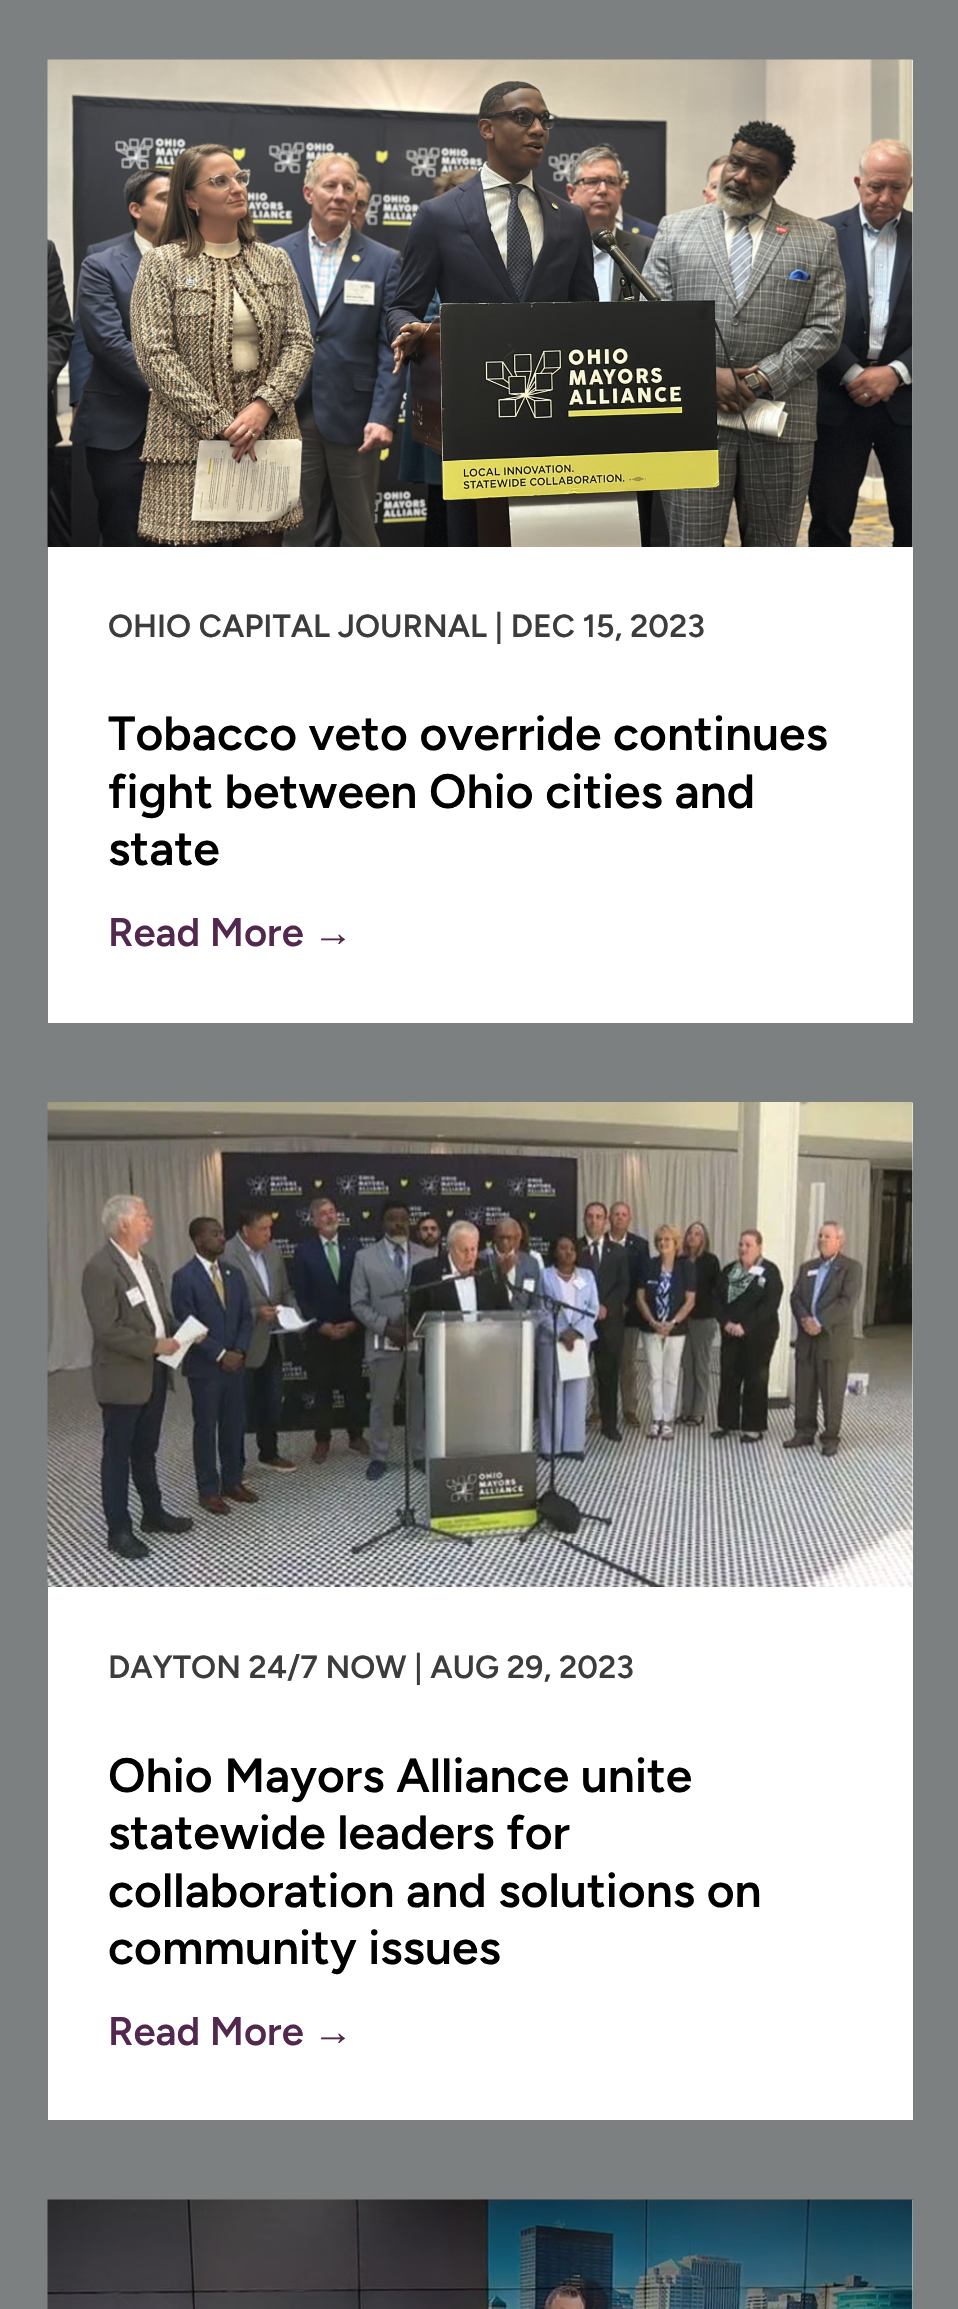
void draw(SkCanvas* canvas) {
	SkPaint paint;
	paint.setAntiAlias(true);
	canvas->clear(0xff7d8080);
	paint.setColor(0xffffffff);
	canvas->drawRect(SkRect::MakeXYWH(48, 60, 865, 963), paint);
	canvas->drawImageRect(SkImages::DeferredFromEncodedData(SkData::MakeFromFileName("img1.png")), SkRect::MakeXYWH(47, 59, 866, 488), SkSamplingOptions());
	SkFont f1(fontMgr->matchFamilyStyle("Figtree", SkFontStyle(600, SkFontStyle::kNormal_Width, SkFontStyle::kUpright_Slant)), 32);
	f1.setSubpixel(true);
	paint.setColor(0xff3b3c3c);
	canvas->drawString("OHIO CAPITAL JOURNAL | DEC 15, 2023", 108, 637, f1, paint);
	SkFont f2(fontMgr->matchFamilyStyle("Figtree", SkFontStyle(600, SkFontStyle::kNormal_Width, SkFontStyle::kUpright_Slant)), 48);
	f2.setSubpixel(true);
	paint.setColor(0xff000000);
	canvas->drawString("Tobacco veto override continues", 108, 750, f2, paint);
	canvas->drawString("fight between Ohio cities and", 108, 808, f2, paint);
	canvas->drawString("state", 108, 865, f2, paint);
	SkFont f3(fontMgr->matchFamilyStyle("Figtree", SkFontStyle(600, SkFontStyle::kNormal_Width, SkFontStyle::kUpright_Slant)), 40);
	f3.setSubpixel(true);
	paint.setColor(0xff53284f);
	canvas->drawString("Read More", 108, 946, f3, paint);
	SkFont f4(fontMgr->matchFamilyStyle("Liberation Sans", SkFontStyle::Bold()), 40);
	f4.setSubpixel(true);
	canvas->drawString("→", 313, 946, f4, paint);
	paint.setColor(0xffffffff);
	canvas->drawRect(SkRect::MakeXYWH(48, 1103, 865, 1017), paint);
	canvas->drawImageRect(SkImages::DeferredFromEncodedData(SkData::MakeFromFileName("img2.png")), SkRect::MakeXYWH(47, 1102, 866, 485), SkSamplingOptions());
	paint.setColor(0xff3b3c3c);
	canvas->drawString("DAYTON 24/7 NOW | AUG 29, 2023", 108, 1678, f1, paint);
	paint.setColor(0xff000000);
	canvas->drawString("Ohio Mayors Alliance unite", 108, 1792, f2, paint);
	canvas->drawString("statewide leaders for", 108, 1849, f2, paint);
	canvas->drawString("collaboration and solutions on", 108, 1907, f2, paint);
	canvas->drawString("community issues", 108, 1964, f2, paint);
	paint.setColor(0xff53284f);
	canvas->drawString("Read More", 108, 2045, f3, paint);
	canvas->drawString("→", 313, 2045, f4, paint);
	paint.setColor(0xffffffff);
	canvas->drawRect(SkRect::MakeXYWH(912, 2200, 1, 109), paint);
	canvas->drawImageRect(SkImages::DeferredFromEncodedData(SkData::MakeFromFileName("img3.png")), SkRect::MakeXYWH(47, 2199, 866, 110), SkSamplingOptions());
}
